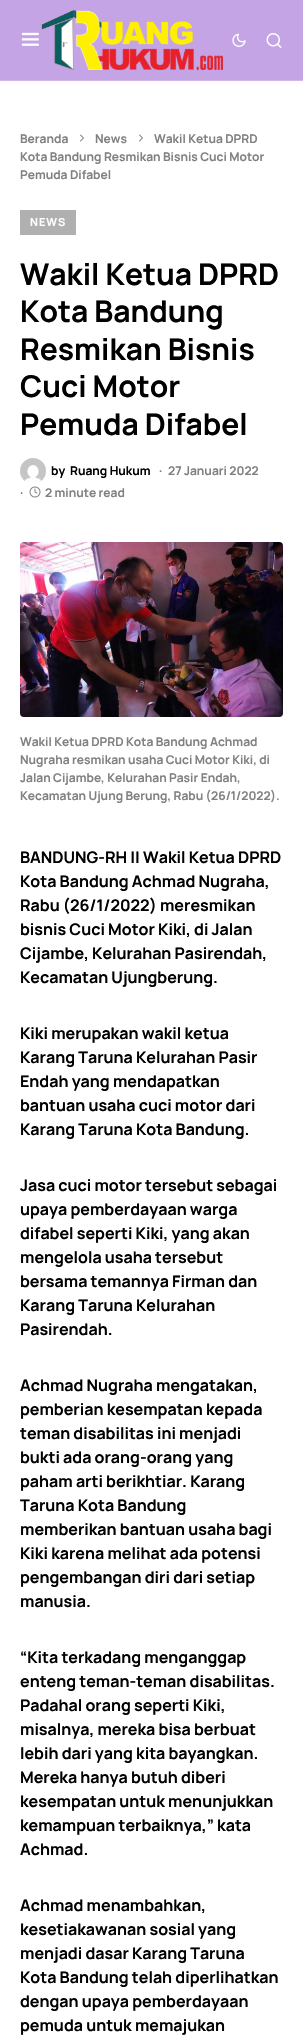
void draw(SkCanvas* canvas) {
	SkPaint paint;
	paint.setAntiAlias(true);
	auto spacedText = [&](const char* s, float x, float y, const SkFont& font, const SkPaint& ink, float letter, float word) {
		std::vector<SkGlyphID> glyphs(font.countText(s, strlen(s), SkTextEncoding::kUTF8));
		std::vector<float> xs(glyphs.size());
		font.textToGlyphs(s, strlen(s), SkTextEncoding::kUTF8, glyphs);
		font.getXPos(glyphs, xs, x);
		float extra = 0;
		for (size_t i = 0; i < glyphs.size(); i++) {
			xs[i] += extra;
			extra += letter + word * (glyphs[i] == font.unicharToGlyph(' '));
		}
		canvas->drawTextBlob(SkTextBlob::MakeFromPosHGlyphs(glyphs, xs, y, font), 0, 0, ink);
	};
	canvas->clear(0xffffffff);
	paint.setColor(0xffc4a4e4);
	canvas->drawRect(SkRect::MakeXYWH(0, 0, 303, 80), paint);
	paint.setColor(0xffd0b6e9);
	canvas->drawRect(SkRect::MakeXYWH(0, 80, 303, 1), paint);
	canvas->drawImageRect(SkImages::DeferredFromEncodedData(SkData::MakeFromFileName("img1.png")), SkRect::MakeXYWH(21, 32, 18, 14), SkSamplingOptions());
	canvas->drawImageRect(SkImages::DeferredFromEncodedData(SkData::MakeFromFileName("img2.png")), SkRect::MakeXYWH(41, 10, 182, 60), SkSamplingOptions());
	canvas->drawImageRect(SkImages::DeferredFromEncodedData(SkData::MakeFromFileName("img3.png")), SkRect::MakeXYWH(232, 33, 14, 14), SkSamplingOptions());
	canvas->drawImageRect(SkImages::DeferredFromEncodedData(SkData::MakeFromFileName("img4.png")), SkRect::MakeXYWH(266, 33, 16, 15), SkSamplingOptions());
	SkFont f1(fontMgr->matchFamilyStyle("Manrope", SkFontStyle::Bold()), 12);
	f1.setSubpixel(true);
	paint.setColor(0xff818181);
	canvas->drawString("Beranda", 20, 143, f1, paint);
	canvas->drawImageRect(SkImages::DeferredFromEncodedData(SkData::MakeFromFileName("img5.png")), SkRect::MakeXYWH(80, 134, 4, 8), SkSamplingOptions());
	canvas->drawString("News", 95, 143, f1, paint);
	canvas->drawImageRect(SkImages::DeferredFromEncodedData(SkData::MakeFromFileName("img5.png")), SkRect::MakeXYWH(139, 134, 4, 8), SkSamplingOptions());
	canvas->drawString("Wakil Ketua DPRD", 154, 143, f1, paint);
	canvas->drawString("Kota Bandung Resmikan Bisnis Cuci Motor", 20, 161, f1, paint);
	canvas->drawString("Pemuda Difabel", 20, 179, f1, paint);
	paint.setColor(0xffb0b0b0);
	canvas->drawRect(SkRect::MakeXYWH(20, 210, 56, 25), paint);
	SkFont f2(fontMgr->matchFamilyStyle("Manrope", SkFontStyle::Bold()), 11);
	f2.setSubpixel(true);
	paint.setColor(0xffffffff);
	spacedText("NEWS", 30, 226, f2, paint, 1, 0);
	SkFont f3(fontMgr->matchFamilyStyle("Manrope", SkFontStyle::Bold()), 30);
	f3.setSubpixel(true);
	paint.setColor(0xff000000);
	canvas->drawString("Wakil Ketua DPRD", 20, 285, f3, paint);
	canvas->drawString("Kota Bandung", 20, 322, f3, paint);
	canvas->drawString("Resmikan Bisnis", 20, 360, f3, paint);
	canvas->drawString("Cuci Motor", 20, 397, f3, paint);
	canvas->drawString("Pemuda Difabel", 20, 435, f3, paint);
	canvas->drawImageRect(SkImages::DeferredFromEncodedData(SkData::MakeFromFileName("img6.png")), SkRect::MakeXYWH(20, 458, 26, 24), SkSamplingOptions());
	canvas->drawString("by", 51, 475, f1, paint);
	canvas->drawString("Ruang Hukum", 70, 475, f1, paint);
	paint.setColor(0xff818181);
	canvas->drawString("·", 159, 475, f1, paint);
	canvas->drawString("27 Januari 2022", 168, 475, f1, paint);
	canvas->drawString("·", 20, 497, f1, paint);
	canvas->drawImageRect(SkImages::DeferredFromEncodedData(SkData::MakeFromFileName("img7.png")), SkRect::MakeXYWH(29, 486, 12, 12), SkSamplingOptions());
	canvas->drawString("2 minute read", 45, 497, f1, paint);
	canvas->drawImageRect(SkImages::DeferredFromEncodedData(SkData::MakeFromFileName("img8.png")), SkRect::MakeXYWH(20, 542, 263, 175), SkSamplingOptions());
	canvas->drawString("Wakil Ketua DPRD Kota Bandung Achmad", 20, 746, f1, paint);
	canvas->drawString("Nugraha resmikan usaha Cuci Motor Kiki, di", 20, 764, f1, paint);
	canvas->drawString("Jalan Cijambe, Kelurahan Pasir Endah,", 20, 782, f1, paint);
	canvas->drawString("Kecamatan Ujung Berung, Rabu (26/1/2022).", 20, 800, f1, paint);
	SkFont f4(fontMgr->matchFamilyStyle("Manrope", SkFontStyle::Bold()), 16);
	f4.setSubpixel(true);
	paint.setColor(0xff000000);
	canvas->drawString("BANDUNG-RH || Wakil Ketua DPRD", 20, 863, f4, paint);
	canvas->drawString("Kota Bandung Achmad Nugraha,", 20, 887, f4, paint);
	canvas->drawString("Rabu (26/1/2022) meresmikan", 20, 911, f4, paint);
	canvas->drawString("bisnis Cuci Motor Kiki, di Jalan", 20, 935, f4, paint);
	canvas->drawString("Cijambe, Kelurahan Pasirendah,", 20, 959, f4, paint);
	canvas->drawString("Kecamatan Ujungberung.", 20, 983, f4, paint);
	canvas->drawString("Kiki merupakan wakil ketua", 20, 1039, f4, paint);
	canvas->drawString("Karang Taruna Kelurahan Pasir", 20, 1063, f4, paint);
	canvas->drawString("Endah yang mendapatkan", 20, 1087, f4, paint);
	canvas->drawString("bantuan usaha cuci motor dari", 20, 1111, f4, paint);
	canvas->drawString("Karang Taruna Kota Bandung.", 20, 1135, f4, paint);
	canvas->drawString("Jasa cuci motor tersebut sebagai", 20, 1191, f4, paint);
	canvas->drawString("upaya pemberdayaan warga", 20, 1215, f4, paint);
	canvas->drawString("difabel seperti Kiki, yang akan", 20, 1239, f4, paint);
	canvas->drawString("mengelola usaha tersebut", 20, 1263, f4, paint);
	canvas->drawString("bersama temannya Firman dan", 20, 1287, f4, paint);
	canvas->drawString("Karang Taruna Kelurahan", 20, 1311, f4, paint);
	canvas->drawString("Pasirendah.", 20, 1335, f4, paint);
	canvas->drawString("Achmad Nugraha mengatakan,", 20, 1391, f4, paint);
	canvas->drawString("pemberian kesempatan kepada", 20, 1415, f4, paint);
	canvas->drawString("teman disabilitas ini menjadi", 20, 1439, f4, paint);
	canvas->drawString("bukti ada orang-orang yang", 20, 1463, f4, paint);
	canvas->drawString("paham arti berikhtiar. Karang", 20, 1487, f4, paint);
	canvas->drawString("Taruna Kota Bandung", 20, 1511, f4, paint);
	canvas->drawString("memberikan bantuan usaha bagi", 20, 1535, f4, paint);
	canvas->drawString("Kiki karena melihat ada potensi", 20, 1559, f4, paint);
	canvas->drawString("pengembangan diri dari setiap", 20, 1583, f4, paint);
	canvas->drawString("manusia.", 20, 1607, f4, paint);
	canvas->drawString("“Kita terkadang menganggap", 20, 1663, f4, paint);
	canvas->drawString("enteng teman-teman disabilitas.", 20, 1687, f4, paint);
	canvas->drawString("Padahal orang seperti Kiki,", 20, 1711, f4, paint);
	canvas->drawString("misalnya, mereka bisa berbuat", 20, 1735, f4, paint);
	canvas->drawString("lebih dari yang kita bayangkan.", 20, 1759, f4, paint);
	canvas->drawString("Mereka hanya butuh diberi", 20, 1783, f4, paint);
	canvas->drawString("kesempatan untuk menunjukkan", 20, 1807, f4, paint);
	canvas->drawString("kemampuan terbaiknya,” kata", 20, 1831, f4, paint);
	canvas->drawString("Achmad.", 20, 1855, f4, paint);
	canvas->drawString("Achmad menambahkan,", 20, 1911, f4, paint);
	canvas->drawString("kesetiakawanan sosial yang", 20, 1935, f4, paint);
	canvas->drawString("menjadi dasar Karang Taruna", 20, 1959, f4, paint);
	canvas->drawString("Kota Bandung telah diperlihatkan", 20, 1983, f4, paint);
	canvas->drawString("dengan upaya pemberdayaan", 20, 2007, f4, paint);
	canvas->drawString("pemuda untuk memajukan", 20, 2031, f4, paint);
}
